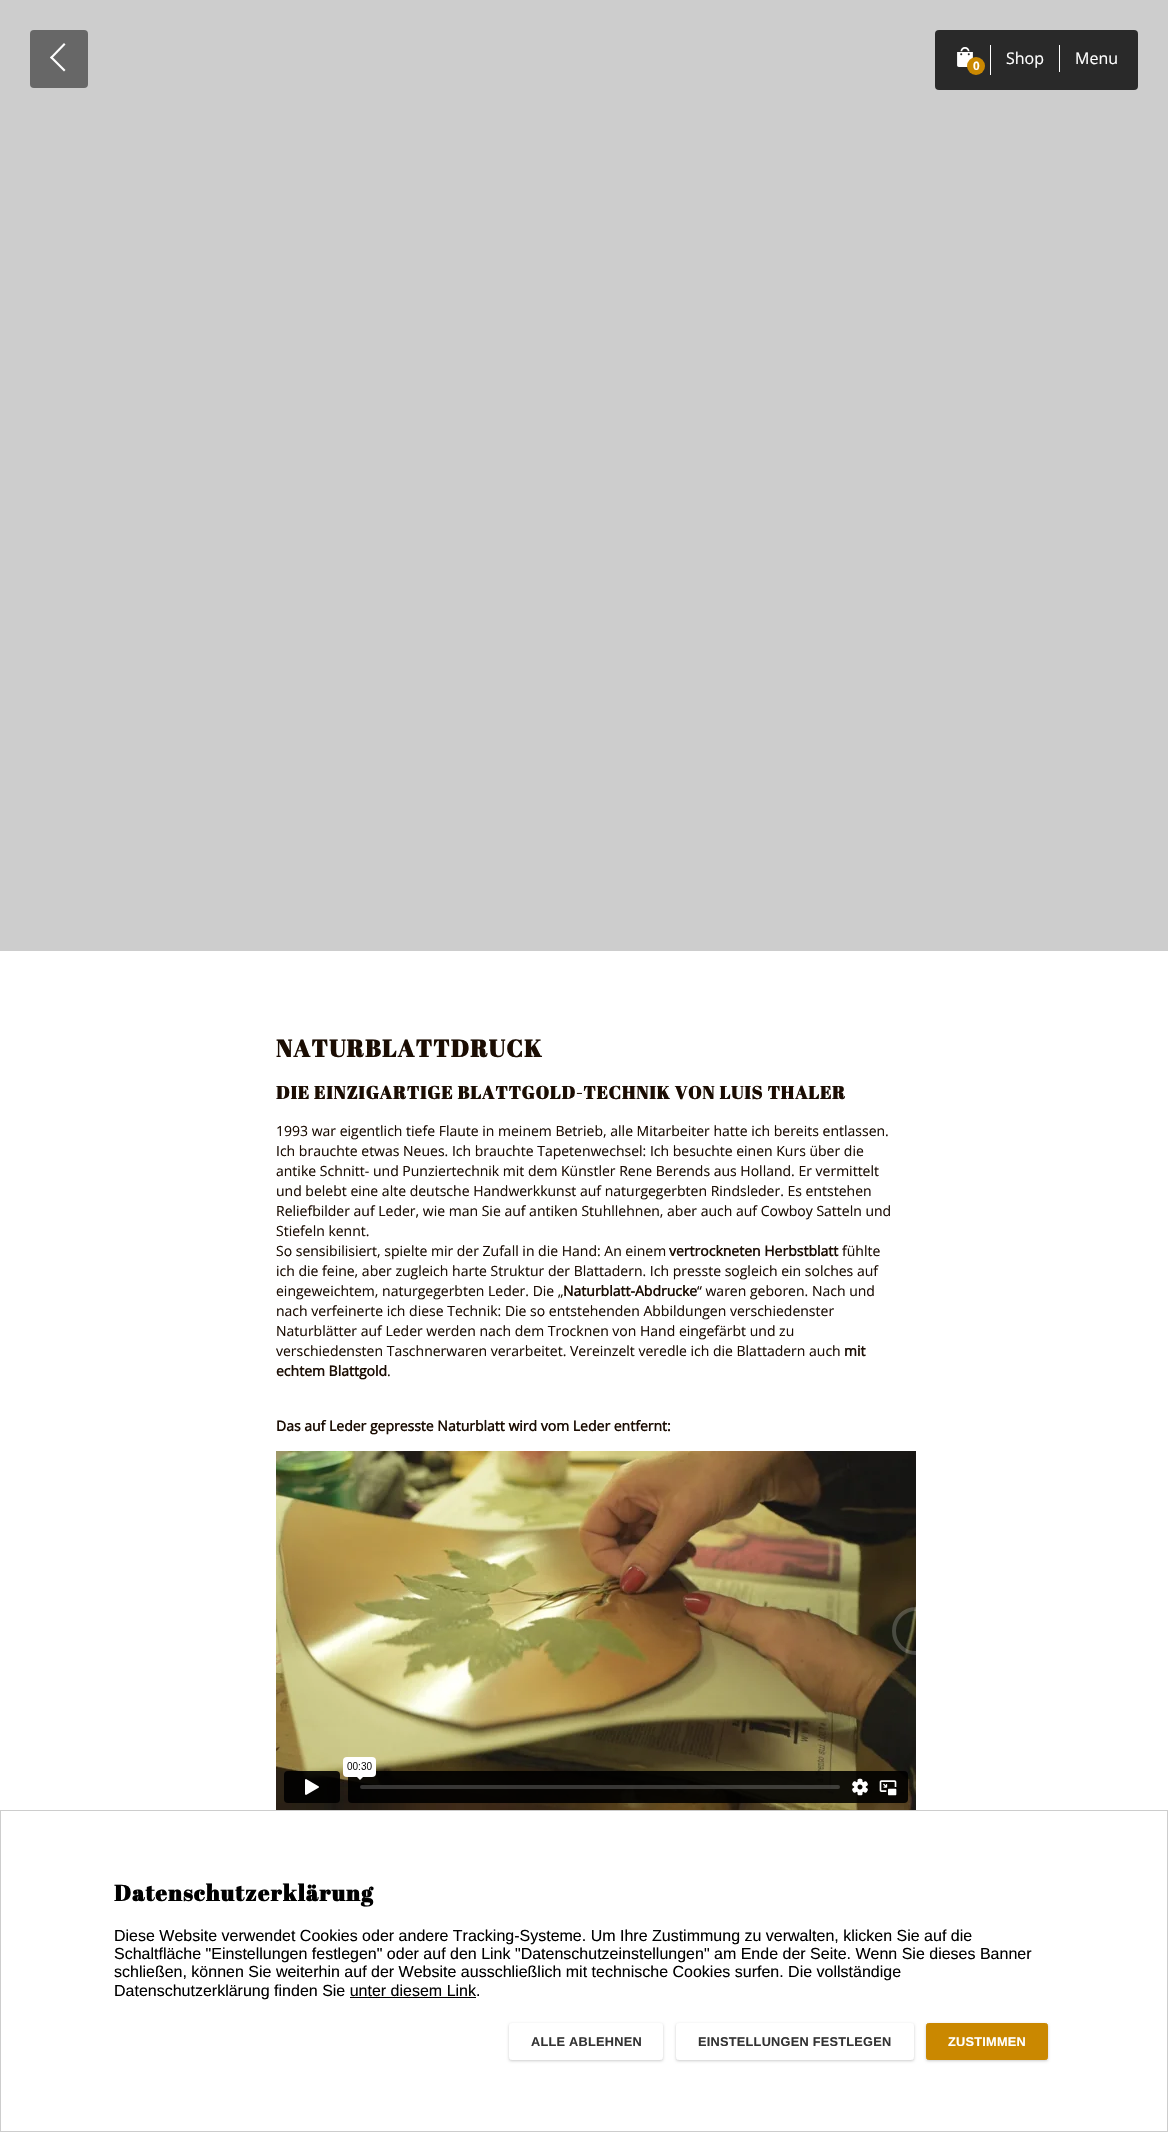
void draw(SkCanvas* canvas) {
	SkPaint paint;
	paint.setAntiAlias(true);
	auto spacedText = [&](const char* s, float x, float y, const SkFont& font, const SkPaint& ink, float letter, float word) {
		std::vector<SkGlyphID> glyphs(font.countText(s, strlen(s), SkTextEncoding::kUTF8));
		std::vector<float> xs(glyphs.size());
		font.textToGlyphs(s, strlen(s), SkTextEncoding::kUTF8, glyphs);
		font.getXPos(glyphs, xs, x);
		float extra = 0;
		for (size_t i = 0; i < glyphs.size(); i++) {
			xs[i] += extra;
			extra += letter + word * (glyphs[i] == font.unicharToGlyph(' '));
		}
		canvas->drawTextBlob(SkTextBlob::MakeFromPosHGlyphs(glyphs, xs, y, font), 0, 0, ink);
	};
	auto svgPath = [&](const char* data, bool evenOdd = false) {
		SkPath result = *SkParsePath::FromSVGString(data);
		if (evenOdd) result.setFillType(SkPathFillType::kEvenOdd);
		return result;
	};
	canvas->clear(0xffffffff);
	paint.setColor(0xffcdcdcd);
	canvas->drawRect(SkRect::MakeXYWH(0, 0, 1168, 951), paint);
	paint.setColor(0xff676767);
	canvas->drawRoundRect(SkRect::MakeXYWH(30, 30, 58, 58), 4, 4, paint);
	paint.setColor(0xffffffff);
	canvas->drawPath(svgPath("M65.5 70L64 71.5L50 57.5L51.5 56Z"), paint);
	canvas->drawPath(svgPath("M65.5 44.5L51.5 59L50 57.5L64 43Z"), paint);
	paint.setColor(0xff292929);
	canvas->drawRoundRect(SkRect::MakeXYWH(935, 30, 203, 60), 4, 4, paint);
	paint.setColor(0xffffffff);
	canvas->drawRect(SkRect::MakeXYWH(1059, 45, 1, 27), paint);
	SkFont f1(fontMgr->matchFamilyStyle("Open Sans", SkFontStyle::Normal()), 16);
	f1.setSubpixel(true);
	canvas->drawString("Shop", 1006, 64, f1, paint);
	canvas->drawString("Menu", 1075, 64, f1, paint);
	canvas->drawRect(SkRect::MakeXYWH(990, 45, 1, 30), paint);
	canvas->drawImageRect(SkImages::DeferredFromEncodedData(SkData::MakeFromFileName("img1.png")), SkRect::MakeXYWH(957, 47, 16, 20), SkSamplingOptions());
	paint.setColor(0xffca8801);
	canvas->drawCircle(976, 66, 9, paint);
	SkFont f2(fontMgr->matchFamilyStyle("Liberation Sans", SkFontStyle::Bold()), 12);
	f2.setSubpixel(true);
	paint.setColor(0xffffffff);
	canvas->drawString("0", 973, 70, f2, paint);
	SkFont f3(fontMgr->matchFamilyStyle("Abril Fatface", SkFontStyle::Bold()), 24);
	f3.setSubpixel(true);
	paint.setColor(0xff1b0d03);
	spacedText("NATURBLATTDRUCK", 276, 1057, f3, paint, 1.25, 0);
	SkFont f4(fontMgr->matchFamilyStyle("Abril Fatface", SkFontStyle::Bold()), 18);
	f4.setSubpixel(true);
	spacedText("DIE EINZIGARTIGE BLATTGOLD-TECHNIK VON LUIS THALER", 276, 1099, f4, paint, 0.9, 0);
	SkFont f5(fontMgr->matchFamilyStyle("Open Sans", SkFontStyle::Normal()), 14);
	f5.setSubpixel(true);
	canvas->drawString("1993 war eigentlich tiefe Flaute in meinem Betrieb, alle Mitarbeiter hatte ich bereits entlassen.", 276, 1136, f5, paint);
	canvas->drawString("Ich brauchte etwas Neues. Ich brauchte Tapetenwechsel: Ich besuchte einen Kurs über die", 276, 1156, f5, paint);
	canvas->drawString("antike Schnitt- und Punziertechnik mit dem Künstler Rene Berends aus Holland. Er vermittelt", 276, 1176, f5, paint);
	canvas->drawString("und belebt eine alte deutsche Handwerkkunst auf naturgegerbten Rindsleder. Es entstehen", 276, 1196, f5, paint);
	canvas->drawString("Reliefbilder auf Leder, wie man Sie auf antiken Stuhllehnen, aber auch auf Cowboy Satteln und", 276, 1216, f5, paint);
	canvas->drawString("Stiefeln kennt.", 276, 1236, f5, paint);
	canvas->drawString("So sensibilisiert, spielte mir der Zufall in die Hand: An einem", 276, 1256, f5, paint);
	SkFont f6(fontMgr->matchFamilyStyle("Open Sans", SkFontStyle::Bold()), 14);
	f6.setSubpixel(true);
	canvas->drawString("vertrockneten Herbstblatt", 669, 1256, f6, paint);
	canvas->drawString("fühlte", 842, 1256, f5, paint);
	canvas->drawString("ich die feine, aber zugleich harte Struktur der Blattadern. Ich presste sogleich ein solches auf", 276, 1276, f5, paint);
	canvas->drawString("eingeweichtem, naturgegerbten Leder. Die „", 276, 1296, f5, paint);
	canvas->drawString("Naturblatt-Abdrucke", 563, 1296, f6, paint);
	canvas->drawString("“ waren geboren. Nach und", 697, 1296, f5, paint);
	canvas->drawString("nach verfeinerte ich diese Technik: Die so entstehenden Abbildungen verschiedenster", 276, 1316, f5, paint);
	canvas->drawString("Naturblätter auf Leder werden nach dem Trocknen von Hand eingefärbt und zu", 276, 1336, f5, paint);
	canvas->drawString("verschiedensten Taschnerwaren verarbeitet. Vereinzelt veredle ich die Blattadern auch", 276, 1356, f5, paint);
	canvas->drawString("mit", 844, 1356, f6, paint);
	canvas->drawString("echtem Blattgold", 276, 1376, f6, paint);
	canvas->drawString(".", 387, 1376, f5, paint);
	canvas->drawString("Das auf Leder gepresste Naturblatt wird vom Leder entfernt:", 276, 1431, f6, paint);
	canvas->drawImageRect(SkImages::DeferredFromEncodedData(SkData::MakeFromFileName("img2.png")), SkRect::MakeXYWH(276, 1451, 640, 359), SkSamplingOptions());
	paint.setStroke(true);
	paint.setStrokeWidth(1);
	paint.setColor(0xffcdcdcd);
	canvas->drawRect(SkRect::MakeXYWH(0.5, 1810.5, 1167, 321), paint);
	SkFont f7(fontMgr->matchFamilyStyle("Abril Fatface", SkFontStyle::Bold()), 22.4);
	f7.setSubpixel(true);
	paint.setStroke(false);
	paint.setColor(0xff000000);
	spacedText("Datenschutzerklärung", 114, 1901, f7, paint, 1.1, 0);
	SkFont f8(fontMgr->matchFamilyStyle("Liberation Sans", SkFontStyle::Normal()), 16);
	f8.setSubpixel(true);
	canvas->drawString("Diese Website verwendet Cookies oder andere Tracking-Systeme. Um Ihre Zustimmung zu verwalten, klicken Sie auf die", 114, 1941, f8, paint);
	canvas->drawString("Schaltfläche \"Einstellungen festlegen\" oder auf den Link \"Datenschutzeinstellungen\" am Ende der Seite. Wenn Sie dieses Banner", 114, 1959, f8, paint);
	canvas->drawString("schließen, können Sie weiterhin auf der Website ausschließlich mit technische Cookies surfen. Die vollständige", 114, 1977, f8, paint);
	canvas->drawString("Datenschutzerklärung finden Sie unter diesem Link.", 114, 1996, f8, paint);
	canvas->drawRect(SkRect::MakeXYWH(350, 1997, 126, 1), paint);
	paint.setColor(0x33000000);
	paint.setMaskFilter(SkMaskFilter::MakeBlur(kNormal_SkBlurStyle, 1.5));
	canvas->drawRoundRect(SkRect::MakeXYWH(509, 2024, 154, 37), 2.5, 2.5, paint);
	paint.setMaskFilter(nullptr);
	paint.setColor(0xffffffff);
	canvas->drawRoundRect(SkRect::MakeXYWH(509.5, 2023.5, 153, 36), 2, 2, paint);
	paint.setStroke(true);
	canvas->drawRoundRect(SkRect::MakeXYWH(509.5, 2023.5, 153, 36), 2, 2, paint);
	SkFont f9(fontMgr->matchFamilyStyle("Liberation Sans", SkFontStyle::Bold()), 12.75);
	f9.setSubpixel(true);
	paint.setStroke(false);
	paint.setColor(0xff333333);
	spacedText("ALLE ABLEHNEN", 531, 2046, f9, paint, 0.25, 0);
	paint.setColor(0x33000000);
	paint.setMaskFilter(SkMaskFilter::MakeBlur(kNormal_SkBlurStyle, 1.5));
	canvas->drawRoundRect(SkRect::MakeXYWH(676, 2024, 238, 37), 2.5, 2.5, paint);
	paint.setMaskFilter(nullptr);
	paint.setColor(0xffffffff);
	canvas->drawRoundRect(SkRect::MakeXYWH(676.5, 2023.5, 237, 36), 2, 2, paint);
	paint.setStroke(true);
	canvas->drawRoundRect(SkRect::MakeXYWH(676.5, 2023.5, 237, 36), 2, 2, paint);
	paint.setStroke(false);
	paint.setColor(0xff333333);
	spacedText("EINSTELLUNGEN FESTLEGEN", 698, 2046, f9, paint, 0.25, 0);
	paint.setColor(0x33000000);
	paint.setMaskFilter(SkMaskFilter::MakeBlur(kNormal_SkBlurStyle, 1.5));
	canvas->drawRoundRect(SkRect::MakeXYWH(926, 2024, 122, 37), 2.5, 2.5, paint);
	paint.setMaskFilter(nullptr);
	paint.setColor(0xffca8800);
	canvas->drawRoundRect(SkRect::MakeXYWH(926.5, 2023.5, 121, 36), 2, 2, paint);
	paint.setStroke(true);
	canvas->drawRoundRect(SkRect::MakeXYWH(926.5, 2023.5, 121, 36), 2, 2, paint);
	paint.setStroke(false);
	paint.setColor(0xffffffff);
	spacedText("ZUSTIMMEN", 948, 2046, f9, paint, 0.25, 0);
}
